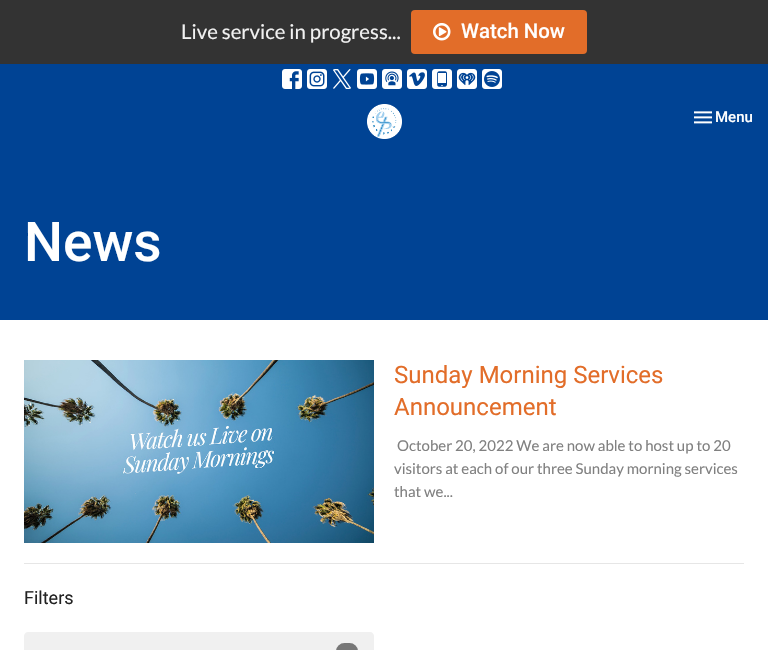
void draw(SkCanvas* canvas) {
	SkPaint paint;
	paint.setAntiAlias(true);
	auto svgPath = [&](const char* data, bool evenOdd = false) {
		SkPath result = *SkParsePath::FromSVGString(data);
		if (evenOdd) result.setFillType(SkPathFillType::kEvenOdd);
		return result;
	};
	canvas->clear(0xffffffff);
	paint.setColor(0xff333333);
	canvas->drawRect(SkRect::MakeXYWH(0, 0, 768, 64), paint);
	SkFont f1(fontMgr->matchFamilyStyle("Lato", SkFontStyle::Normal()), 20.4);
	f1.setSubpixel(true);
	paint.setColor(0xfff1f1f1);
	canvas->drawString("Live service in progress...", 181, 39, f1, paint);
	paint.setColor(0xffe26d29);
	canvas->drawRoundRect(SkRect::MakeXYWH(411, 10, 176, 44), 4, 4, paint);
	canvas->drawImageRect(SkImages::DeferredFromEncodedData(SkData::MakeFromFileName("img1.png")), SkRect::MakeXYWH(433, 23, 18, 18), SkSamplingOptions());
	SkFont f2(fontMgr->matchFamilyStyle("Roboto", SkFontStyle(500, SkFontStyle::kNormal_Width, SkFontStyle::kUpright_Slant)), 20.4);
	f2.setSubpixel(true);
	paint.setColor(0xffffffff);
	canvas->drawString("Watch Now", 461, 38, f2, paint);
	paint.setColor(0xff004394);
	canvas->drawRect(SkRect::MakeXYWH(0, 64, 768, 256), paint);
	canvas->drawImageRect(SkImages::DeferredFromEncodedData(SkData::MakeFromFileName("img2.png")), SkRect::MakeXYWH(282, 69, 20, 20), SkSamplingOptions());
	canvas->drawImageRect(SkImages::DeferredFromEncodedData(SkData::MakeFromFileName("img3.png")), SkRect::MakeXYWH(307, 69, 20, 20), SkSamplingOptions());
	canvas->drawImageRect(SkImages::DeferredFromEncodedData(SkData::MakeFromFileName("img4.png")), SkRect::MakeXYWH(333, 69, 18, 20), SkSamplingOptions());
	canvas->drawImageRect(SkImages::DeferredFromEncodedData(SkData::MakeFromFileName("img5.png")), SkRect::MakeXYWH(357, 69, 20, 20), SkSamplingOptions());
	canvas->drawImageRect(SkImages::DeferredFromEncodedData(SkData::MakeFromFileName("img6.png")), SkRect::MakeXYWH(382, 69, 20, 20), SkSamplingOptions());
	canvas->drawImageRect(SkImages::DeferredFromEncodedData(SkData::MakeFromFileName("img7.png")), SkRect::MakeXYWH(407, 69, 20, 20), SkSamplingOptions());
	canvas->drawImageRect(SkImages::DeferredFromEncodedData(SkData::MakeFromFileName("img8.png")), SkRect::MakeXYWH(432, 69, 20, 20), SkSamplingOptions());
	canvas->drawImageRect(SkImages::DeferredFromEncodedData(SkData::MakeFromFileName("img9.png")), SkRect::MakeXYWH(457, 69, 20, 20), SkSamplingOptions());
	canvas->drawImageRect(SkImages::DeferredFromEncodedData(SkData::MakeFromFileName("img10.png")), SkRect::MakeXYWH(482, 69, 20, 20), SkSamplingOptions());
	canvas->drawImageRect(SkImages::DeferredFromEncodedData(SkData::MakeFromFileName("img11.png")), SkRect::MakeXYWH(367, 104, 35, 35), SkSamplingOptions());
	canvas->drawImageRect(SkImages::DeferredFromEncodedData(SkData::MakeFromFileName("img12.png")), SkRect::MakeXYWH(694, 111, 18, 13), SkSamplingOptions());
	SkFont f3(fontMgr->matchFamilyStyle("Roboto", SkFontStyle(500, SkFontStyle::kNormal_Width, SkFontStyle::kUpright_Slant)), 15);
	f3.setSubpixel(true);
	paint.setColor(0xffffffff);
	canvas->drawString("Menu", 715, 122, f3, paint);
	SkFont f4(fontMgr->matchFamilyStyle("Roboto", SkFontStyle(500, SkFontStyle::kNormal_Width, SkFontStyle::kUpright_Slant)), 55);
	f4.setSubpixel(true);
	canvas->drawString("News", 24, 261, f4, paint);
	paint.setColor(0xffe6e6e6);
	canvas->drawRect(SkRect::MakeXYWH(24, 563, 720, 1), paint);
	canvas->drawImageRect(SkImages::DeferredFromEncodedData(SkData::MakeFromFileName("img13.png")), SkRect::MakeXYWH(24, 360, 350, 183), SkSamplingOptions());
	SkFont f5(fontMgr->matchFamilyStyle("Roboto", SkFontStyle::Normal()), 24);
	f5.setSubpixel(true);
	paint.setColor(0xffe26d29);
	canvas->drawString("Sunday Morning Services", 394, 383, f5, paint);
	canvas->drawString("Announcement", 394, 415, f5, paint);
	SkFont f6(fontMgr->matchFamilyStyle("Lato", SkFontStyle::Normal()), 15);
	f6.setSubpixel(true);
	paint.setColor(0xff808080);
	canvas->drawString("October 20, 2022 We are now able to host up to 20", 397, 451, f6, paint);
	canvas->drawString("visitors at each of our three Sunday morning services", 394, 474, f6, paint);
	canvas->drawString("that we...", 394, 497, f6, paint);
	SkFont f7(fontMgr->matchFamilyStyle("Roboto", SkFontStyle::Normal()), 18);
	f7.setSubpixel(true);
	paint.setColor(0xff222222);
	canvas->drawString("Filters", 24, 604, f7, paint);
	paint.setColor(0xfff0f0f0);
	canvas->drawPath(svgPath("M28 632H370C372 632 374 634 374 636V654H24V636C24 634 26 632 28 632Z"), paint);
	paint.setColor(0xff777777);
	canvas->drawRoundRect(SkRect::MakeXYWH(336, 643, 22, 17), 9.5, 9.5, paint);
}
